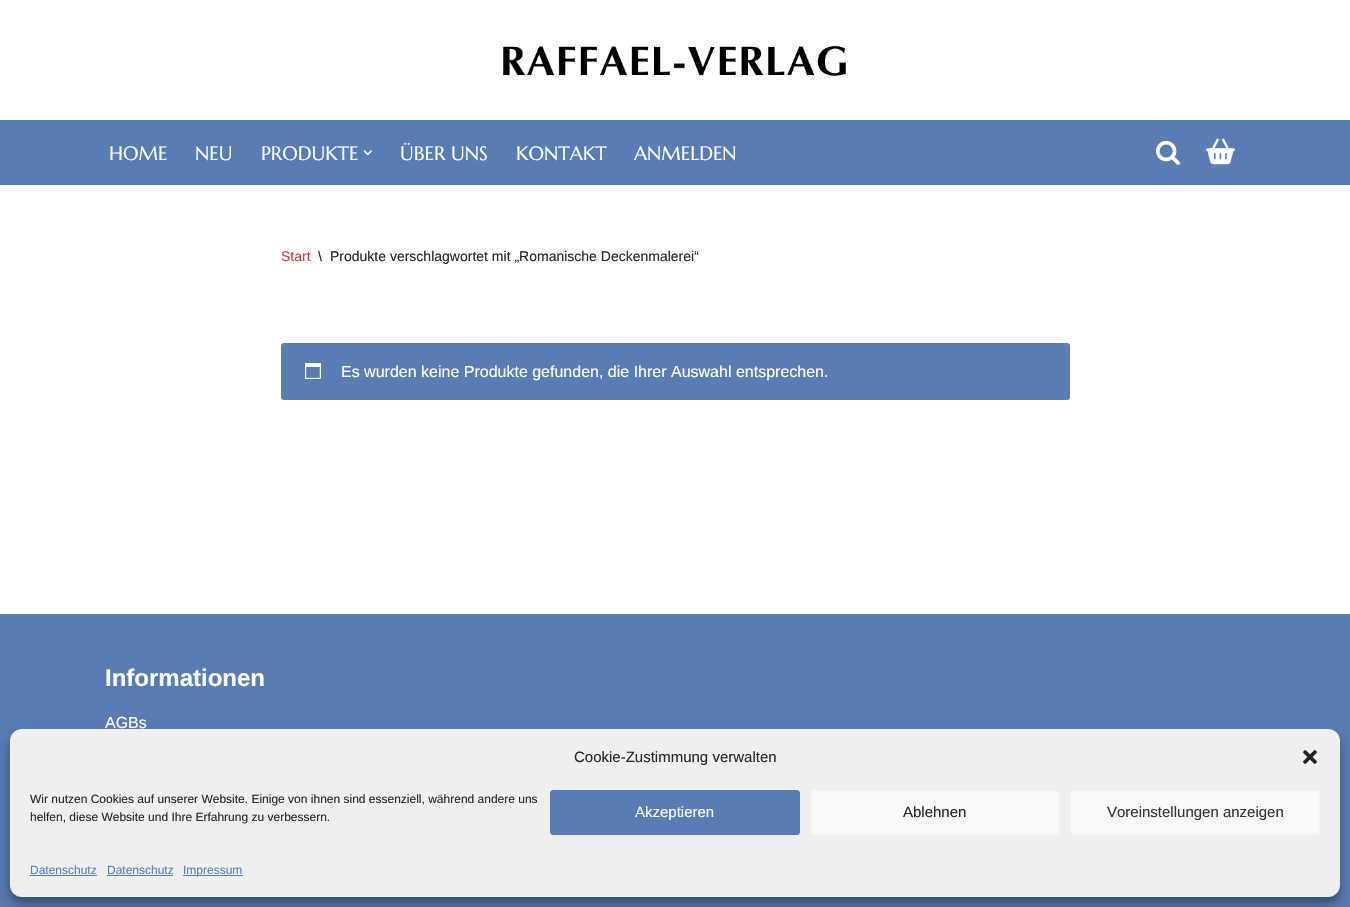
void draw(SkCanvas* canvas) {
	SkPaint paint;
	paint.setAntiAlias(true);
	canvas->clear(0xffffffff);
	canvas->drawImageRect(SkImages::DeferredFromEncodedData(SkData::MakeFromFileName("img1.png")), SkRect::MakeXYWH(502, 45, 344, 31), SkSamplingOptions());
	paint.setColor(0xff597cb4);
	canvas->drawRect(SkRect::MakeXYWH(0, 120, 1350, 65), paint);
	SkFont f1(fontMgr->matchFamilyStyle("Marcellus SC", SkFontStyle::Normal()), 19.25);
	f1.setSubpixel(true);
	paint.setColor(0xffffffff);
	canvas->drawString("HOME", 109, 160, f1, paint);
	canvas->drawString("NEU", 195, 160, f1, paint);
	canvas->drawString("PRODUKTE", 261, 160, f1, paint);
	canvas->drawImageRect(SkImages::DeferredFromEncodedData(SkData::MakeFromFileName("img2.png")), SkRect::MakeXYWH(363, 150, 9, 6), SkSamplingOptions());
	canvas->drawString("ÜBER UNS", 400, 160, f1, paint);
	canvas->drawString("KONTAKT", 516, 160, f1, paint);
	canvas->drawString("ANMELDEN", 634, 160, f1, paint);
	canvas->drawImageRect(SkImages::DeferredFromEncodedData(SkData::MakeFromFileName("img3.png")), SkRect::MakeXYWH(1155, 140, 25, 25), SkSamplingOptions());
	canvas->drawImageRect(SkImages::DeferredFromEncodedData(SkData::MakeFromFileName("img4.png")), SkRect::MakeXYWH(1206, 138, 29, 27), SkSamplingOptions());
	SkFont f2(fontMgr->matchFamilyStyle("Liberation Sans", SkFontStyle::Normal()), 14);
	f2.setSubpixel(true);
	paint.setColor(0xffdd3333);
	canvas->drawString("Start", 281, 261, f2, paint);
	paint.setColor(0xff272626);
	canvas->drawString("\\", 318, 261, f2, paint);
	canvas->drawString("Produkte verschlagwortet mit „Romanische Deckenmalerei“", 330, 261, f2, paint);
	paint.setColor(0xff597cb4);
	canvas->drawRoundRect(SkRect::MakeXYWH(281, 343, 789, 57), 3, 3, paint);
	canvas->drawImageRect(SkImages::DeferredFromEncodedData(SkData::MakeFromFileName("img5.png")), SkRect::MakeXYWH(305, 363, 16, 16), SkSamplingOptions());
	SkFont f3(fontMgr->matchFamilyStyle("Liberation Sans", SkFontStyle::Normal()), 16);
	f3.setSubpixel(true);
	paint.setColor(0xffffffff);
	canvas->drawString("Es wurden keine Produkte gefunden, die Ihrer Auswahl entsprechen.", 341, 377, f3, paint);
	paint.setColor(0xff597cb4);
	canvas->drawRect(SkRect::MakeXYWH(0, 614, 1350, 293), paint);
	SkFont f4(fontMgr->matchFamilyStyle("Liberation Sans", SkFontStyle::Bold()), 24);
	f4.setSubpixel(true);
	paint.setColor(0xffffffff);
	canvas->drawString("Informationen", 105, 686, f4, paint);
	canvas->drawString("AGBs", 105, 728, f3, paint);
	paint.setColor(0x3b000000);
	paint.setMaskFilter(SkMaskFilter::MakeBlur(kNormal_SkBlurStyle, 3));
	canvas->drawRoundRect(SkRect::MakeXYWH(10, 735, 1330, 168), 12, 12, paint);
	paint.setMaskFilter(nullptr);
	paint.setColor(0x30000000);
	paint.setMaskFilter(SkMaskFilter::MakeBlur(kNormal_SkBlurStyle, 10));
	canvas->drawRoundRect(SkRect::MakeXYWH(10, 739, 1330, 168), 12, 12, paint);
	paint.setMaskFilter(nullptr);
	paint.setColor(0xffefefef);
	canvas->drawRoundRect(SkRect::MakeXYWH(10, 729, 1330, 168), 12, 12, paint);
	SkFont f5(fontMgr->matchFamilyStyle("Liberation Sans", SkFontStyle::Normal()), 15);
	f5.setSubpixel(true);
	paint.setColor(0xff272626);
	canvas->drawString("Cookie-Zustimmung verwalten", 574, 762, f5, paint);
	canvas->drawImageRect(SkImages::DeferredFromEncodedData(SkData::MakeFromFileName("img6.png")), SkRect::MakeXYWH(1303, 750, 14, 14), SkSamplingOptions());
	SkFont f6(fontMgr->matchFamilyStyle("Liberation Sans", SkFontStyle::Normal()), 12);
	f6.setSubpixel(true);
	canvas->drawString("Wir nutzen Cookies auf unserer Website. Einige von ihnen sind essenziell, während andere uns", 30, 803, f6, paint);
	canvas->drawString("helfen, diese Website und Ihre Erfahrung zu verbessern.", 30, 821, f6, paint);
	paint.setColor(0xff597cb4);
	canvas->drawRoundRect(SkRect::MakeXYWH(550.5, 790.5, 249, 44), 2.5, 2.5, paint);
	paint.setStroke(true);
	paint.setStrokeWidth(1);
	canvas->drawRoundRect(SkRect::MakeXYWH(550.5, 790.5, 249, 44), 2.5, 2.5, paint);
	paint.setStroke(false);
	paint.setColor(0xffffffff);
	canvas->drawString("Akzeptieren", 635, 817, f5, paint);
	paint.setColor(0xfff9f9f9);
	canvas->drawRoundRect(SkRect::MakeXYWH(810.5, 790.5, 249, 44), 2.5, 2.5, paint);
	paint.setStroke(true);
	paint.setColor(0xfff2f2f2);
	canvas->drawRoundRect(SkRect::MakeXYWH(810.5, 790.5, 249, 44), 2.5, 2.5, paint);
	paint.setStroke(false);
	paint.setColor(0xff272626);
	canvas->drawString("Ablehnen", 903, 817, f5, paint);
	paint.setColor(0xfff9f9f9);
	canvas->drawRoundRect(SkRect::MakeXYWH(1070.5, 790.5, 249, 44), 2.5, 2.5, paint);
	paint.setStroke(true);
	paint.setColor(0xfff2f2f2);
	canvas->drawRoundRect(SkRect::MakeXYWH(1070.5, 790.5, 249, 44), 2.5, 2.5, paint);
	paint.setStroke(false);
	paint.setColor(0xff333333);
	canvas->drawString("Voreinstellungen anzeigen", 1107, 817, f5, paint);
	paint.setColor(0xff597cb4);
	canvas->drawString("Datenschutz", 30, 874, f6, paint);
	canvas->drawRect(SkRect::MakeXYWH(30, 875, 67, 1), paint);
	canvas->drawString("Datenschutz", 107, 874, f6, paint);
	canvas->drawRect(SkRect::MakeXYWH(107, 875, 66, 1), paint);
	canvas->drawRect(SkRect::MakeXYWH(183, 875, 60, 1), paint);
	canvas->drawString("Impressum", 183, 874, f6, paint);
}
